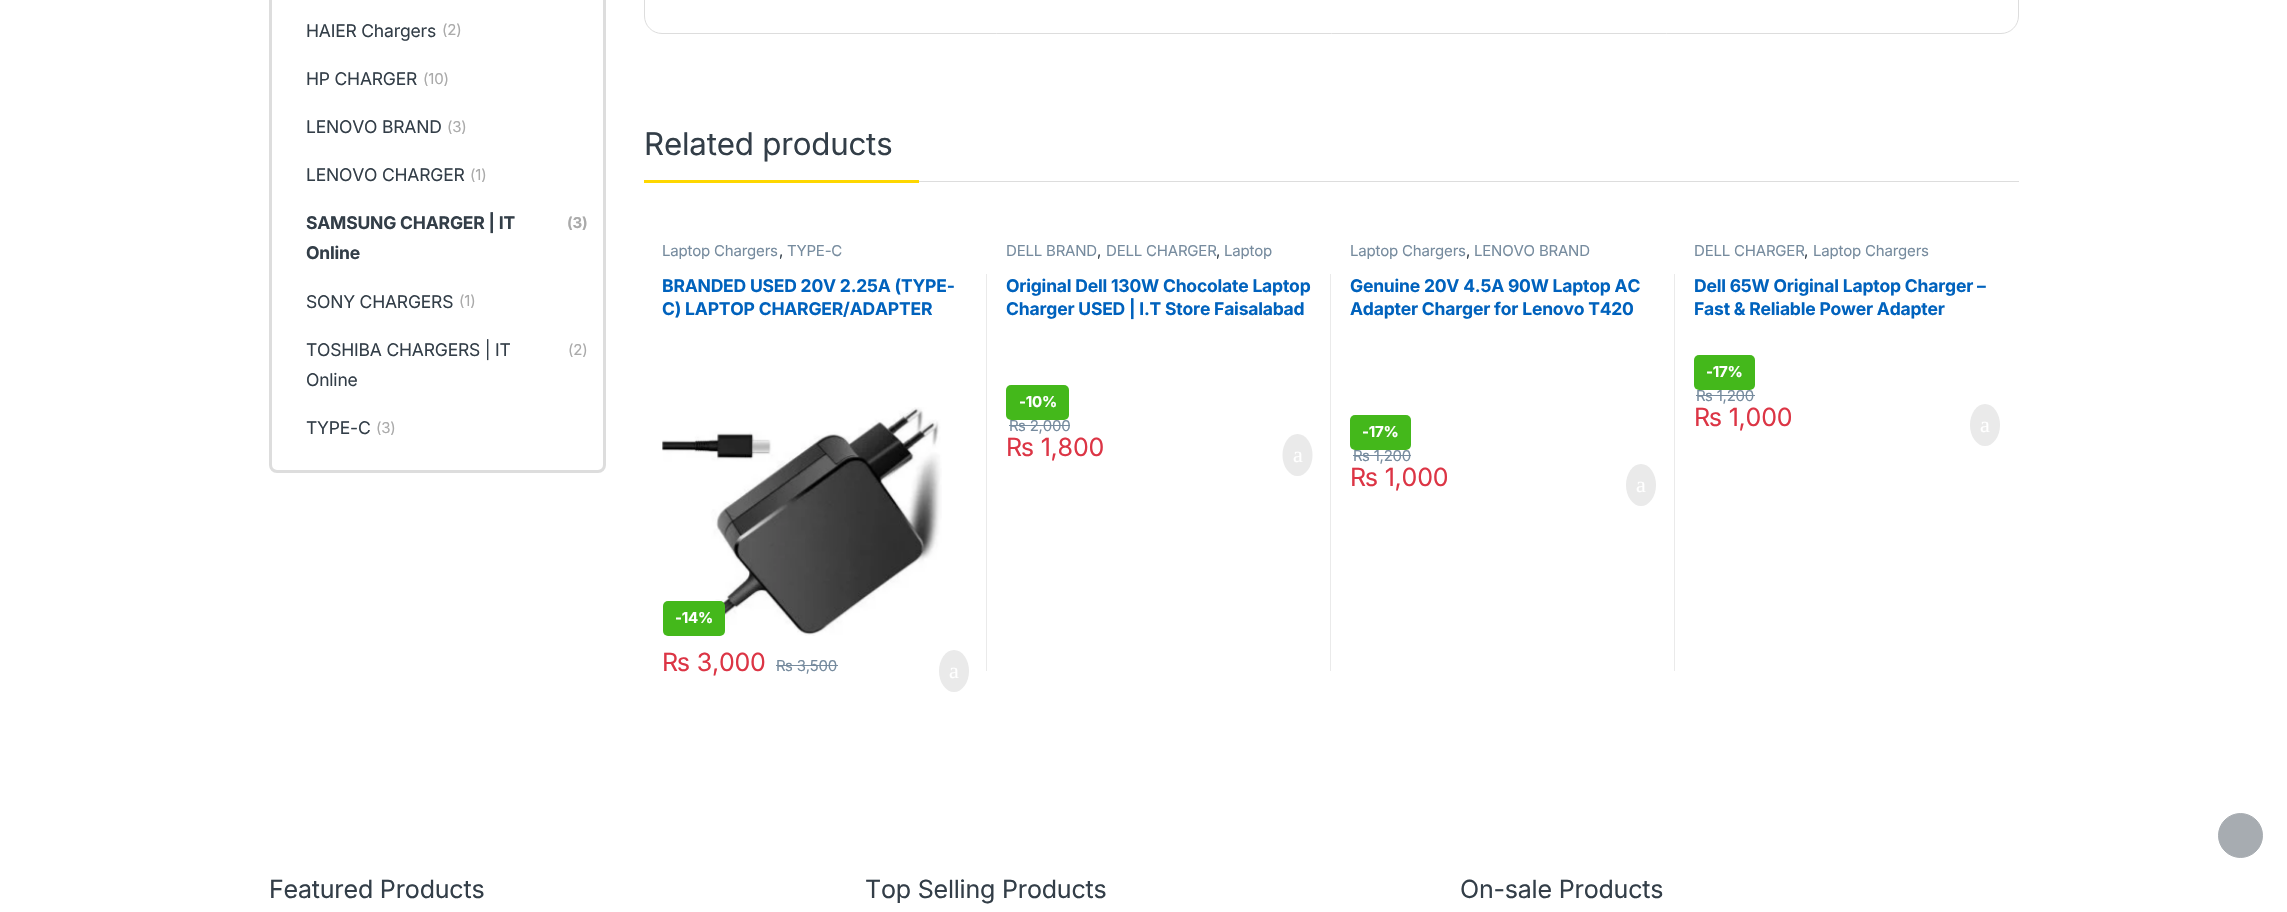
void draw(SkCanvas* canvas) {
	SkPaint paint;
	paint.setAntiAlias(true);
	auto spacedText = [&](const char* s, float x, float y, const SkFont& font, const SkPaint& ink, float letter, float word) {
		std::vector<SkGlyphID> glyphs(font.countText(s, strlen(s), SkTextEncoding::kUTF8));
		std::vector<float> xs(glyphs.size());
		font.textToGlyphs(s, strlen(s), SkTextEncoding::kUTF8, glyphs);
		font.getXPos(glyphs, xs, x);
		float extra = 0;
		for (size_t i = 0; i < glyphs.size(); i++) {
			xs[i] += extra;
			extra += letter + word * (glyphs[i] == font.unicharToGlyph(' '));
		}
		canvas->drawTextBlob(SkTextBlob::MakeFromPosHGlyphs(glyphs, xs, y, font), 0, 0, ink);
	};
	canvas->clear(0xffffffff);
	paint.setStroke(true);
	paint.setStrokeWidth(3);
	paint.setColor(0xffdddddd);
	canvas->drawRoundRect(SkRect::MakeXYWH(270.5, -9.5, 334, 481), 6.5, 6.5, paint);
	SkFont f1(fontMgr->matchFamilyStyle("Inter", SkFontStyle::Normal()), 17.5);
	f1.setSubpixel(true);
	paint.setStroke(false);
	paint.setColor(0xff333e48);
	spacedText("HAIER Chargers", 306, 37, f1, paint, -0.2, 0);
	SkFont f2(fontMgr->matchFamilyStyle("Inter", SkFontStyle::Normal()), 15);
	f2.setSubpixel(true);
	paint.setColor(0xffaaaaaa);
	spacedText("(2)", 442, 35, f2, paint, -0.2, 0);
	paint.setColor(0xff333e48);
	spacedText("HP CHARGER", 306, 85, f1, paint, -0.2, 0);
	paint.setColor(0xffaaaaaa);
	spacedText("(10)", 423, 84, f2, paint, -0.2, 0);
	paint.setColor(0xff333e48);
	spacedText("LENOVO BRAND", 306, 133, f1, paint, -0.2, 0);
	paint.setColor(0xffaaaaaa);
	spacedText("(3)", 447, 132, f2, paint, -0.2, 0);
	paint.setColor(0xff333e48);
	spacedText("LENOVO CHARGER", 306, 181, f1, paint, -0.2, 0);
	paint.setColor(0xffaaaaaa);
	spacedText("(1)", 470, 180, f2, paint, -0.2, 0);
	SkFont f3(fontMgr->matchFamilyStyle("Inter", SkFontStyle::Bold()), 17.5);
	f3.setSubpixel(true);
	paint.setColor(0xff333e48);
	spacedText("SAMSUNG CHARGER | IT", 306, 229, f3, paint, -0.2, 0);
	SkFont f4(fontMgr->matchFamilyStyle("Inter", SkFontStyle::Bold()), 15);
	f4.setSubpixel(true);
	paint.setColor(0xffaaaaaa);
	spacedText("(3)", 567, 228, f4, paint, -0.2, 0);
	paint.setColor(0xff333e48);
	spacedText("Online", 306, 259, f3, paint, -0.2, 0);
	spacedText("SONY CHARGERS", 306, 308, f1, paint, -0.2, 0);
	paint.setColor(0xffaaaaaa);
	spacedText("(1)", 459, 306, f2, paint, -0.2, 0);
	paint.setColor(0xff333e48);
	spacedText("TOSHIBA CHARGERS | IT", 306, 356, f1, paint, -0.2, 0);
	paint.setColor(0xffaaaaaa);
	spacedText("(2)", 568, 355, f2, paint, -0.2, 0);
	paint.setColor(0xff333e48);
	spacedText("Online", 306, 386, f1, paint, -0.2, 0);
	spacedText("TYPE-C", 306, 434, f1, paint, -0.2, 0);
	paint.setColor(0xffaaaaaa);
	spacedText("(3)", 376, 433, f2, paint, -0.2, 0);
	paint.setStroke(true);
	paint.setStrokeWidth(1);
	paint.setColor(0xffdddddd);
	canvas->drawRoundRect(SkRect::MakeXYWH(644.5, -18.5, 1374, 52), 17.5, 17.5, paint);
	paint.setStroke(false);
	canvas->drawRect(SkRect::MakeXYWH(919, 181, 1100, 1), paint);
	SkFont f5(fontMgr->matchFamilyStyle("Inter", SkFontStyle::Normal()), 31.25);
	f5.setSubpixel(true);
	paint.setColor(0xff333e48);
	spacedText("Related products", 644, 155, f5, paint, -0.2, 0);
	paint.setColor(0xfffed700);
	canvas->drawRect(SkRect::MakeXYWH(644, 180, 275, 3), paint);
	paint.setColor(0xff768b9e);
	spacedText("Laptop Chargers", 662, 256, f2, paint, -0.2, 0);
	paint.setColor(0xff333e48);
	spacedText(",", 779, 256, f2, paint, -0.2, 0);
	paint.setColor(0xff768b9e);
	spacedText("TYPE-C", 787, 256, f2, paint, -0.2, 0);
	paint.setColor(0xff0062bd);
	spacedText("BRANDED USED 20V 2.25A (TYPE-", 662, 292, f3, paint, -0.2, 0);
	spacedText("C) LAPTOP CHARGER/ADAPTER", 662, 315, f3, paint, -0.2, 0);
	canvas->drawImageRect(SkImages::DeferredFromEncodedData(SkData::MakeFromFileName("img1.png")), SkRect::MakeXYWH(662, 407, 280, 229), SkSamplingOptions());
	paint.setColor(0xff44b81b);
	canvas->drawRoundRect(SkRect::MakeXYWH(663, 601, 62, 35), 5, 5, paint);
	paint.setColor(0xffffffff);
	spacedText("-14%", 675, 623, f4, paint, -0.2, 0);
	SkFont f6(fontMgr->matchFamilyStyle("Inter", SkFontStyle::Normal()), 25);
	f6.setSubpixel(true);
	paint.setColor(0xffdc3545);
	spacedText("₨ 3,000", 662, 671, f6, paint, -0.2, 0);
	paint.setColor(0xff768b9e);
	spacedText("₨ 3,500", 776, 671, f2, paint, -0.2, 0);
	canvas->drawRect(SkRect::MakeXYWH(776, 665, 62, 1), paint);
	paint.setColor(0xffeaeaea);
	canvas->drawOval(SkRect::MakeXYWH(939, 650, 30, 42), paint);
	SkFont f7(fontMgr->matchFamilyStyle("Liberation Serif", SkFontStyle::Normal()), 22);
	f7.setSubpixel(true);
	paint.setColor(0xffffffff);
	spacedText("a", 949, 678, f7, paint, -0.2, 0);
	paint.setColor(0xffeaeaea);
	canvas->drawRect(SkRect::MakeXYWH(986, 274, 1, 397), paint);
	paint.setColor(0xff768b9e);
	spacedText("DELL BRAND", 1006, 256, f2, paint, -0.2, 0);
	paint.setColor(0xff333e48);
	spacedText(",", 1097, 256, f2, paint, -0.2, 0);
	paint.setColor(0xff768b9e);
	spacedText("DELL CHARGER", 1106, 256, f2, paint, -0.2, 0);
	paint.setColor(0xff333e48);
	spacedText(",", 1216, 256, f2, paint, -0.2, 0);
	paint.setColor(0xff768b9e);
	spacedText("Laptop", 1224, 256, f2, paint, -0.2, 0);
	paint.setColor(0xff0062bd);
	spacedText("Original Dell 130W Chocolate Laptop", 1006, 292, f3, paint, -0.2, 0);
	spacedText("Charger USED | I.T Store Faisalabad", 1006, 315, f3, paint, -0.2, 0);
	paint.setColor(0xff768b9e);
	spacedText("₨ 2,000", 1009, 431, f2, paint, -0.2, 0);
	paint.setColor(0xff44b81b);
	canvas->drawRoundRect(SkRect::MakeXYWH(1006, 385, 63, 35), 5, 5, paint);
	paint.setColor(0xffffffff);
	spacedText("-10%", 1019, 407, f4, paint, -0.2, 0);
	paint.setColor(0xff768b9e);
	canvas->drawRect(SkRect::MakeXYWH(1009, 425, 61, 1), paint);
	paint.setColor(0xffdc3545);
	spacedText("₨ 1,800", 1006, 456, f6, paint, -0.2, 0);
	paint.setColor(0xffeaeaea);
	canvas->drawOval(SkRect::MakeXYWH(1282.5, 434, 30, 42), paint);
	paint.setColor(0xffffffff);
	spacedText("a", 1293, 462, f7, paint, -0.2, 0);
	paint.setColor(0xffeaeaea);
	canvas->drawRect(SkRect::MakeXYWH(1330, 274, 1, 397), paint);
	paint.setColor(0xff768b9e);
	spacedText("Laptop Chargers", 1350, 256, f2, paint, -0.2, 0);
	paint.setColor(0xff333e48);
	spacedText(",", 1466, 256, f2, paint, -0.2, 0);
	paint.setColor(0xff768b9e);
	spacedText("LENOVO BRAND", 1474, 256, f2, paint, -0.2, 0);
	paint.setColor(0xff0062bd);
	spacedText("Genuine 20V 4.5A 90W Laptop AC", 1350, 292, f3, paint, -0.2, 0);
	spacedText("Adapter Charger for Lenovo T420", 1350, 315, f3, paint, -0.2, 0);
	paint.setColor(0xff768b9e);
	spacedText("₨ 1,200", 1353, 461, f2, paint, -0.2, 0);
	paint.setColor(0xff44b81b);
	canvas->drawRoundRect(SkRect::MakeXYWH(1350, 415, 61, 35), 5, 5, paint);
	paint.setColor(0xffffffff);
	spacedText("-17%", 1362, 437, f4, paint, -0.2, 0);
	paint.setColor(0xff768b9e);
	canvas->drawRect(SkRect::MakeXYWH(1353, 455, 58, 1), paint);
	paint.setColor(0xffdc3545);
	spacedText("₨ 1,000", 1350, 486, f6, paint, -0.2, 0);
	paint.setColor(0xffeaeaea);
	canvas->drawOval(SkRect::MakeXYWH(1626, 464, 30, 42), paint);
	paint.setColor(0xffffffff);
	spacedText("a", 1636, 492, f7, paint, -0.2, 0);
	paint.setColor(0xffeaeaea);
	canvas->drawRect(SkRect::MakeXYWH(1674, 274, 1, 397), paint);
	paint.setColor(0xff768b9e);
	spacedText("DELL CHARGER", 1694, 256, f2, paint, -0.2, 0);
	paint.setColor(0xff333e48);
	spacedText(",", 1804, 256, f2, paint, -0.2, 0);
	paint.setColor(0xff768b9e);
	spacedText("Laptop Chargers", 1813, 256, f2, paint, -0.2, 0);
	paint.setColor(0xff0062bd);
	spacedText("Dell 65W Original Laptop Charger –", 1694, 292, f3, paint, -0.2, 0);
	spacedText("Fast & Reliable Power Adapter", 1694, 315, f3, paint, -0.2, 0);
	paint.setColor(0xff768b9e);
	spacedText("₨ 1,200", 1696, 401, f2, paint, -0.2, 0);
	paint.setColor(0xff44b81b);
	canvas->drawRoundRect(SkRect::MakeXYWH(1694, 355, 61, 35), 5, 5, paint);
	paint.setColor(0xffffffff);
	spacedText("-17%", 1706, 377, f4, paint, -0.2, 0);
	paint.setColor(0xff768b9e);
	canvas->drawRect(SkRect::MakeXYWH(1696, 395, 59, 1), paint);
	paint.setColor(0xffdc3545);
	spacedText("₨ 1,000", 1694, 426, f6, paint, -0.2, 0);
	paint.setColor(0xffeaeaea);
	canvas->drawOval(SkRect::MakeXYWH(1970, 404, 30, 42), paint);
	paint.setColor(0xffffffff);
	spacedText("a", 1980, 432, f7, paint, -0.2, 0);
	paint.setColor(0xff333e48);
	spacedText("Featured Products", 269, 898, f6, paint, -0.2, 0);
	spacedText("Top Selling Products", 865, 898, f6, paint, -0.2, 0);
	spacedText("On-sale Products", 1460, 898, f6, paint, -0.2, 0);
	paint.setColor(0xffa7acb1);
	canvas->drawCircle(2240.5, 835.5, 22, paint);
	paint.setStroke(true);
	canvas->drawCircle(2240.5, 835.5, 22, paint);
}
